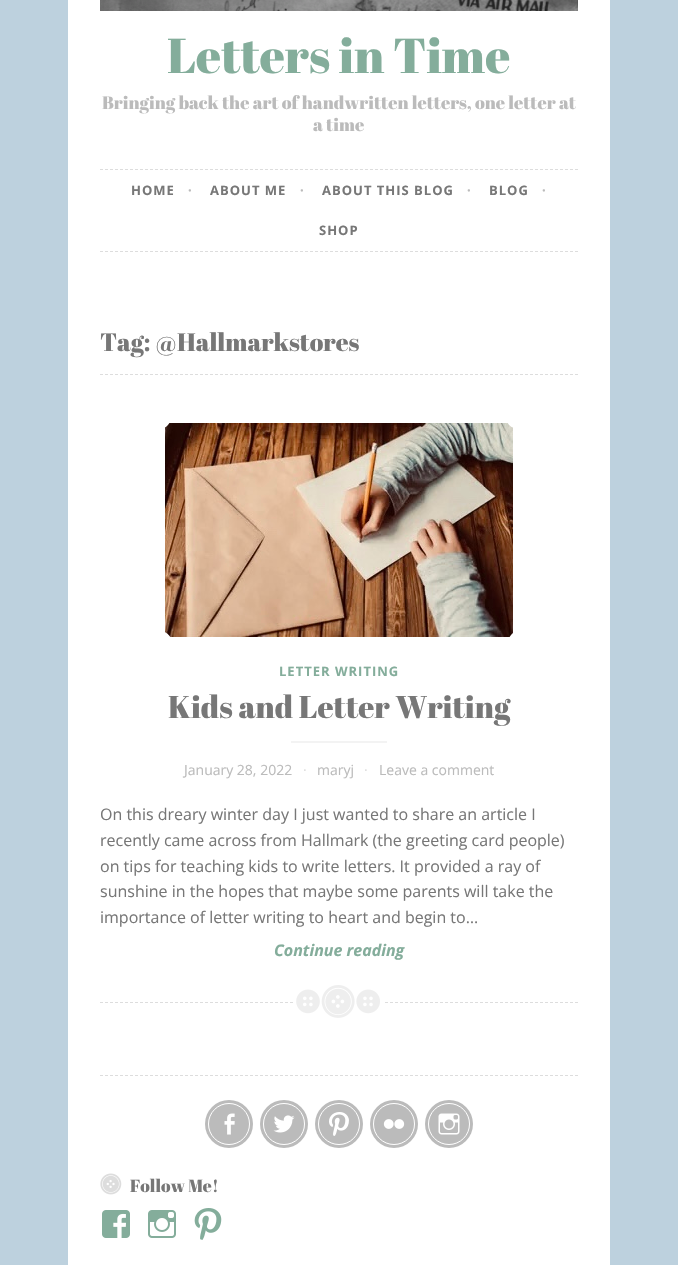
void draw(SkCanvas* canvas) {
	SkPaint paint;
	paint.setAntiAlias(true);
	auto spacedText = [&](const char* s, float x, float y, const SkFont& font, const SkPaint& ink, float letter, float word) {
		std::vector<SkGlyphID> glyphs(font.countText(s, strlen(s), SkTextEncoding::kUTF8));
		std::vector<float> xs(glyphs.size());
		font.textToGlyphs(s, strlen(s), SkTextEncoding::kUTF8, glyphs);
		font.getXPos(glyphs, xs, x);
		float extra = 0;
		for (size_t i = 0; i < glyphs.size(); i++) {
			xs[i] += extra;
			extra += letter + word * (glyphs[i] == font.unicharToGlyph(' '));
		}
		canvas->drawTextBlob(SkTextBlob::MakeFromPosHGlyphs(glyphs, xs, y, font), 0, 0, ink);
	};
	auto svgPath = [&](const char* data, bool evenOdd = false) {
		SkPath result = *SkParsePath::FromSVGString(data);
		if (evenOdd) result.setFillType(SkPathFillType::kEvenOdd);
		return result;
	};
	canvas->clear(0xffbdd1de);
	paint.setColor(0xffffffff);
	canvas->drawRect(SkRect::MakeXYWH(68, 0, 542, 1265), paint);
	canvas->drawImageRect(SkImages::DeferredFromEncodedData(SkData::MakeFromFileName("img1.png")), SkRect::MakeXYWH(100, 0, 478, 11), SkSamplingOptions());
	SkFont f1(fontMgr->matchFamilyStyle("Abril Fatface", SkFontStyle::Normal()), 48.75);
	f1.setSubpixel(true);
	paint.setColor(0xff84ad9b);
	canvas->drawString("Letters in Time", 167, 73, f1, paint);
	SkFont f2(fontMgr->matchFamilyStyle("Abril Fatface", SkFontStyle::Normal()), 18);
	f2.setSubpixel(true);
	paint.setColor(0xffbbbbbb);
	canvas->drawString("Bringing back the art of handwritten letters, one letter at", 102, 109, f2, paint);
	canvas->drawString("a time", 313, 131, f2, paint);
	paint.setStroke(true);
	paint.setStrokeWidth(1);
	paint.setColor(0xffdddddd);
	paint.setPathEffect(SkDashPathEffect::Make({{3, 2}}, 0));
	canvas->drawPath(svgPath("M100 169.5H578"), paint);
	paint.setPathEffect(nullptr);
	paint.setPathEffect(SkDashPathEffect::Make({{3, 2}}, 0));
	canvas->drawPath(svgPath("M100 251.5H578"), paint);
	paint.setPathEffect(nullptr);
	SkFont f3(fontMgr->matchFamilyStyle("Open Sans", SkFontStyle::Bold()), 13);
	f3.setSubpixel(true);
	paint.setStroke(false);
	paint.setColor(0xff777777);
	spacedText("HOME", 131, 195, f3, paint, 1, 0);
	paint.setColor(0xffbbbbbb);
	spacedText("·", 188, 195, f3, paint, 1, 0);
	paint.setColor(0xff777777);
	spacedText("ABOUT ME", 210, 195, f3, paint, 1, 0);
	paint.setColor(0xffbbbbbb);
	spacedText("·", 300, 195, f3, paint, 1, 0);
	paint.setColor(0xff777777);
	spacedText("ABOUT THIS BLOG", 322, 195, f3, paint, 1, 0);
	paint.setColor(0xffbbbbbb);
	spacedText("·", 467, 195, f3, paint, 1, 0);
	paint.setColor(0xff777777);
	spacedText("BLOG", 489, 195, f3, paint, 1, 0);
	paint.setColor(0xffbbbbbb);
	spacedText("·", 542, 195, f3, paint, 1, 0);
	paint.setColor(0xff777777);
	spacedText("SHOP", 319, 235, f3, paint, 1, 0);
	paint.setStroke(true);
	paint.setColor(0xffdddddd);
	paint.setPathEffect(SkDashPathEffect::Make({{3, 2}}, 0));
	canvas->drawPath(svgPath("M100 374.5H578"), paint);
	paint.setPathEffect(nullptr);
	SkFont f4(fontMgr->matchFamilyStyle("Abril Fatface", SkFontStyle::Normal()), 25);
	f4.setSubpixel(true);
	paint.setStroke(false);
	paint.setColor(0xff777777);
	canvas->drawString("Tag: @Hallmarkstores", 100, 351, f4, paint);
	paint.setStroke(true);
	paint.setColor(0xffdddddd);
	paint.setPathEffect(SkDashPathEffect::Make({{3, 2}}, 0));
	canvas->drawPath(svgPath("M100 1002.5H578"), paint);
	paint.setPathEffect(nullptr);
	canvas->drawImageRect(SkImages::DeferredFromEncodedData(SkData::MakeFromFileName("img2.png")), SkRect::MakeXYWH(165, 423, 348, 214), SkSamplingOptions());
	canvas->save();
	canvas->clipRect(SkRect::MakeXYWH(100, 423, 478, 214));
	paint.setStroke(false);
	paint.setColor(0xffffffff);
	canvas->drawPath(svgPath("M99 567C115 576 95 588 118 598C127 603 125 610 123 613L122 614L123 613C127 611 134 609 138 619C148 642 161 622 171 638H99"), paint);
	canvas->restore();
	canvas->save();
	canvas->clipRect(SkRect::MakeXYWH(504, 563, 74, 74));
	canvas->drawPath(svgPath("M509 638C518 622 530 642 540 619C544 609 552 612 554 613L556 615L555 613C553 610 550 603 560 599C584 589 563 575 579 566V638"), paint);
	canvas->restore();
	canvas->save();
	canvas->clipRect(SkRect::MakeXYWH(100, 423, 74, 74));
	canvas->drawPath(svgPath("M170 422C161 438 148 418 139 441C134 451 127 448 124 447L123 445L124 447C125 450 128 457 118 461C95 471 115 485 99 494V422"), paint);
	canvas->restore();
	canvas->save();
	canvas->clipRect(SkRect::MakeXYWH(100, 423, 478, 214));
	canvas->drawPath(svgPath("M579 492C572 488 572 484 572 479C572 473 573 467 560 462C551 457 553 450 555 447L549 448C538 448 540 432 529 429C520 427 513 432 507 422H579Z"), paint);
	canvas->restore();
	paint.setColor(0xff84ad9b);
	spacedText("LETTER WRITING", 279, 676, f3, paint, 1, 0);
	SkFont f5(fontMgr->matchFamilyStyle("Abril Fatface", SkFontStyle::Normal()), 31.25);
	f5.setSubpixel(true);
	paint.setColor(0xff777777);
	canvas->drawString("Kids and Letter Writing", 168, 718, f5, paint);
	paint.setColor(0xfff3f3f3);
	canvas->drawRect(SkRect::MakeXYWH(291, 741, 96, 2), paint);
	SkFont f6(fontMgr->matchFamilyStyle("Open Sans", SkFontStyle::Normal()), 14);
	f6.setSubpixel(true);
	paint.setColor(0xffbbbbbb);
	canvas->drawString("January 28, 2022", 184, 775, f6, paint);
	paint.setColor(0xffdddddd);
	canvas->drawString("·", 303, 775, f6, paint);
	paint.setColor(0xffbbbbbb);
	canvas->drawString("maryj", 317, 775, f6, paint);
	paint.setColor(0xffdddddd);
	canvas->drawString("·", 364, 775, f6, paint);
	paint.setColor(0xffbbbbbb);
	canvas->drawString("Leave a comment", 379, 775, f6, paint);
	SkFont f7(fontMgr->matchFamilyStyle("Open Sans", SkFontStyle::Normal()), 16);
	f7.setSubpixel(true);
	paint.setColor(0xff777777);
	canvas->drawString("On this dreary winter day I just wanted to share an article I", 100, 820, f7, paint);
	canvas->drawString("recently came across from Hallmark (the greeting card people)", 100, 846, f7, paint);
	canvas->drawString("on tips for teaching kids to write letters. It provided a ray of", 100, 872, f7, paint);
	canvas->drawString("sunshine in the hopes that maybe some parents will take the", 100, 897, f7, paint);
	canvas->drawString("importance of letter writing to heart and begin to…", 100, 923, f7, paint);
	SkFont f8(fontMgr->matchFamilyStyle("Open Sans", SkFontStyle::BoldItalic()), 16);
	f8.setSubpixel(true);
	paint.setColor(0xff84ad9b);
	canvas->drawString("Continue reading", 274, 956, f8, paint);
	paint.setColor(0xffffffff);
	canvas->drawRect(SkRect::MakeXYWH(295, 1002, 88, 1), paint);
	canvas->drawImageRect(SkImages::DeferredFromEncodedData(SkData::MakeFromFileName("img3.png")), SkRect::MakeXYWH(296, 985, 84, 33), SkSamplingOptions());
	paint.setStroke(true);
	paint.setColor(0xffdddddd);
	paint.setPathEffect(SkDashPathEffect::Make({{3, 2}}, 0));
	canvas->drawPath(svgPath("M100 1075.5H578"), paint);
	paint.setPathEffect(nullptr);
	paint.setStroke(false);
	paint.setColor(0xffbbbbbb);
	canvas->drawCircle(229, 1124, 24, paint);
	canvas->drawImageRect(SkImages::DeferredFromEncodedData(SkData::MakeFromFileName("img4.png")), SkRect::MakeXYWH(224, 1113, 11, 22), SkSamplingOptions());
	paint.setStroke(true);
	paint.setColor(0xffffffff);
	canvas->drawCircle(229, 1124, 20.5, paint);
	paint.setStroke(false);
	paint.setColor(0xffbbbbbb);
	canvas->drawCircle(284, 1124, 24, paint);
	canvas->drawImageRect(SkImages::DeferredFromEncodedData(SkData::MakeFromFileName("img5.png")), SkRect::MakeXYWH(273, 1115, 22, 18), SkSamplingOptions());
	paint.setStroke(true);
	paint.setColor(0xffffffff);
	canvas->drawCircle(284, 1124, 20.5, paint);
	paint.setStroke(false);
	paint.setColor(0xffbbbbbb);
	canvas->drawCircle(339, 1124, 24, paint);
	canvas->drawImageRect(SkImages::DeferredFromEncodedData(SkData::MakeFromFileName("img6.png")), SkRect::MakeXYWH(329, 1112, 20, 24), SkSamplingOptions());
	paint.setStroke(true);
	paint.setColor(0xffffffff);
	canvas->drawCircle(339, 1124, 20.5, paint);
	paint.setStroke(false);
	paint.setColor(0xffbbbbbb);
	canvas->drawCircle(394, 1124, 24, paint);
	canvas->drawImageRect(SkImages::DeferredFromEncodedData(SkData::MakeFromFileName("img7.png")), SkRect::MakeXYWH(383, 1119, 22, 10), SkSamplingOptions());
	paint.setStroke(true);
	paint.setColor(0xffffffff);
	canvas->drawCircle(394, 1124, 20.5, paint);
	paint.setStroke(false);
	paint.setColor(0xffbbbbbb);
	canvas->drawCircle(449, 1124, 24, paint);
	canvas->drawImageRect(SkImages::DeferredFromEncodedData(SkData::MakeFromFileName("img8.png")), SkRect::MakeXYWH(438, 1113, 22, 22), SkSamplingOptions());
	paint.setStroke(true);
	paint.setColor(0xffffffff);
	canvas->drawCircle(449, 1124, 20.5, paint);
	canvas->drawImageRect(SkImages::DeferredFromEncodedData(SkData::MakeFromFileName("img9.png")), SkRect::MakeXYWH(100, 1173, 22, 22), SkSamplingOptions());
	SkFont f9(fontMgr->matchFamilyStyle("Abril Fatface", SkFontStyle::Normal()), 17.5);
	f9.setSubpixel(true);
	paint.setStroke(false);
	paint.setColor(0xff777777);
	canvas->drawString("Follow Me!", 130, 1192, f9, paint);
	canvas->drawImageRect(SkImages::DeferredFromEncodedData(SkData::MakeFromFileName("img10.png")), SkRect::MakeXYWH(102, 1210, 28, 28), SkSamplingOptions());
	canvas->drawImageRect(SkImages::DeferredFromEncodedData(SkData::MakeFromFileName("img11.png")), SkRect::MakeXYWH(148, 1210, 28, 28), SkSamplingOptions());
	canvas->drawImageRect(SkImages::DeferredFromEncodedData(SkData::MakeFromFileName("img12.png")), SkRect::MakeXYWH(194, 1208, 28, 32), SkSamplingOptions());
}
